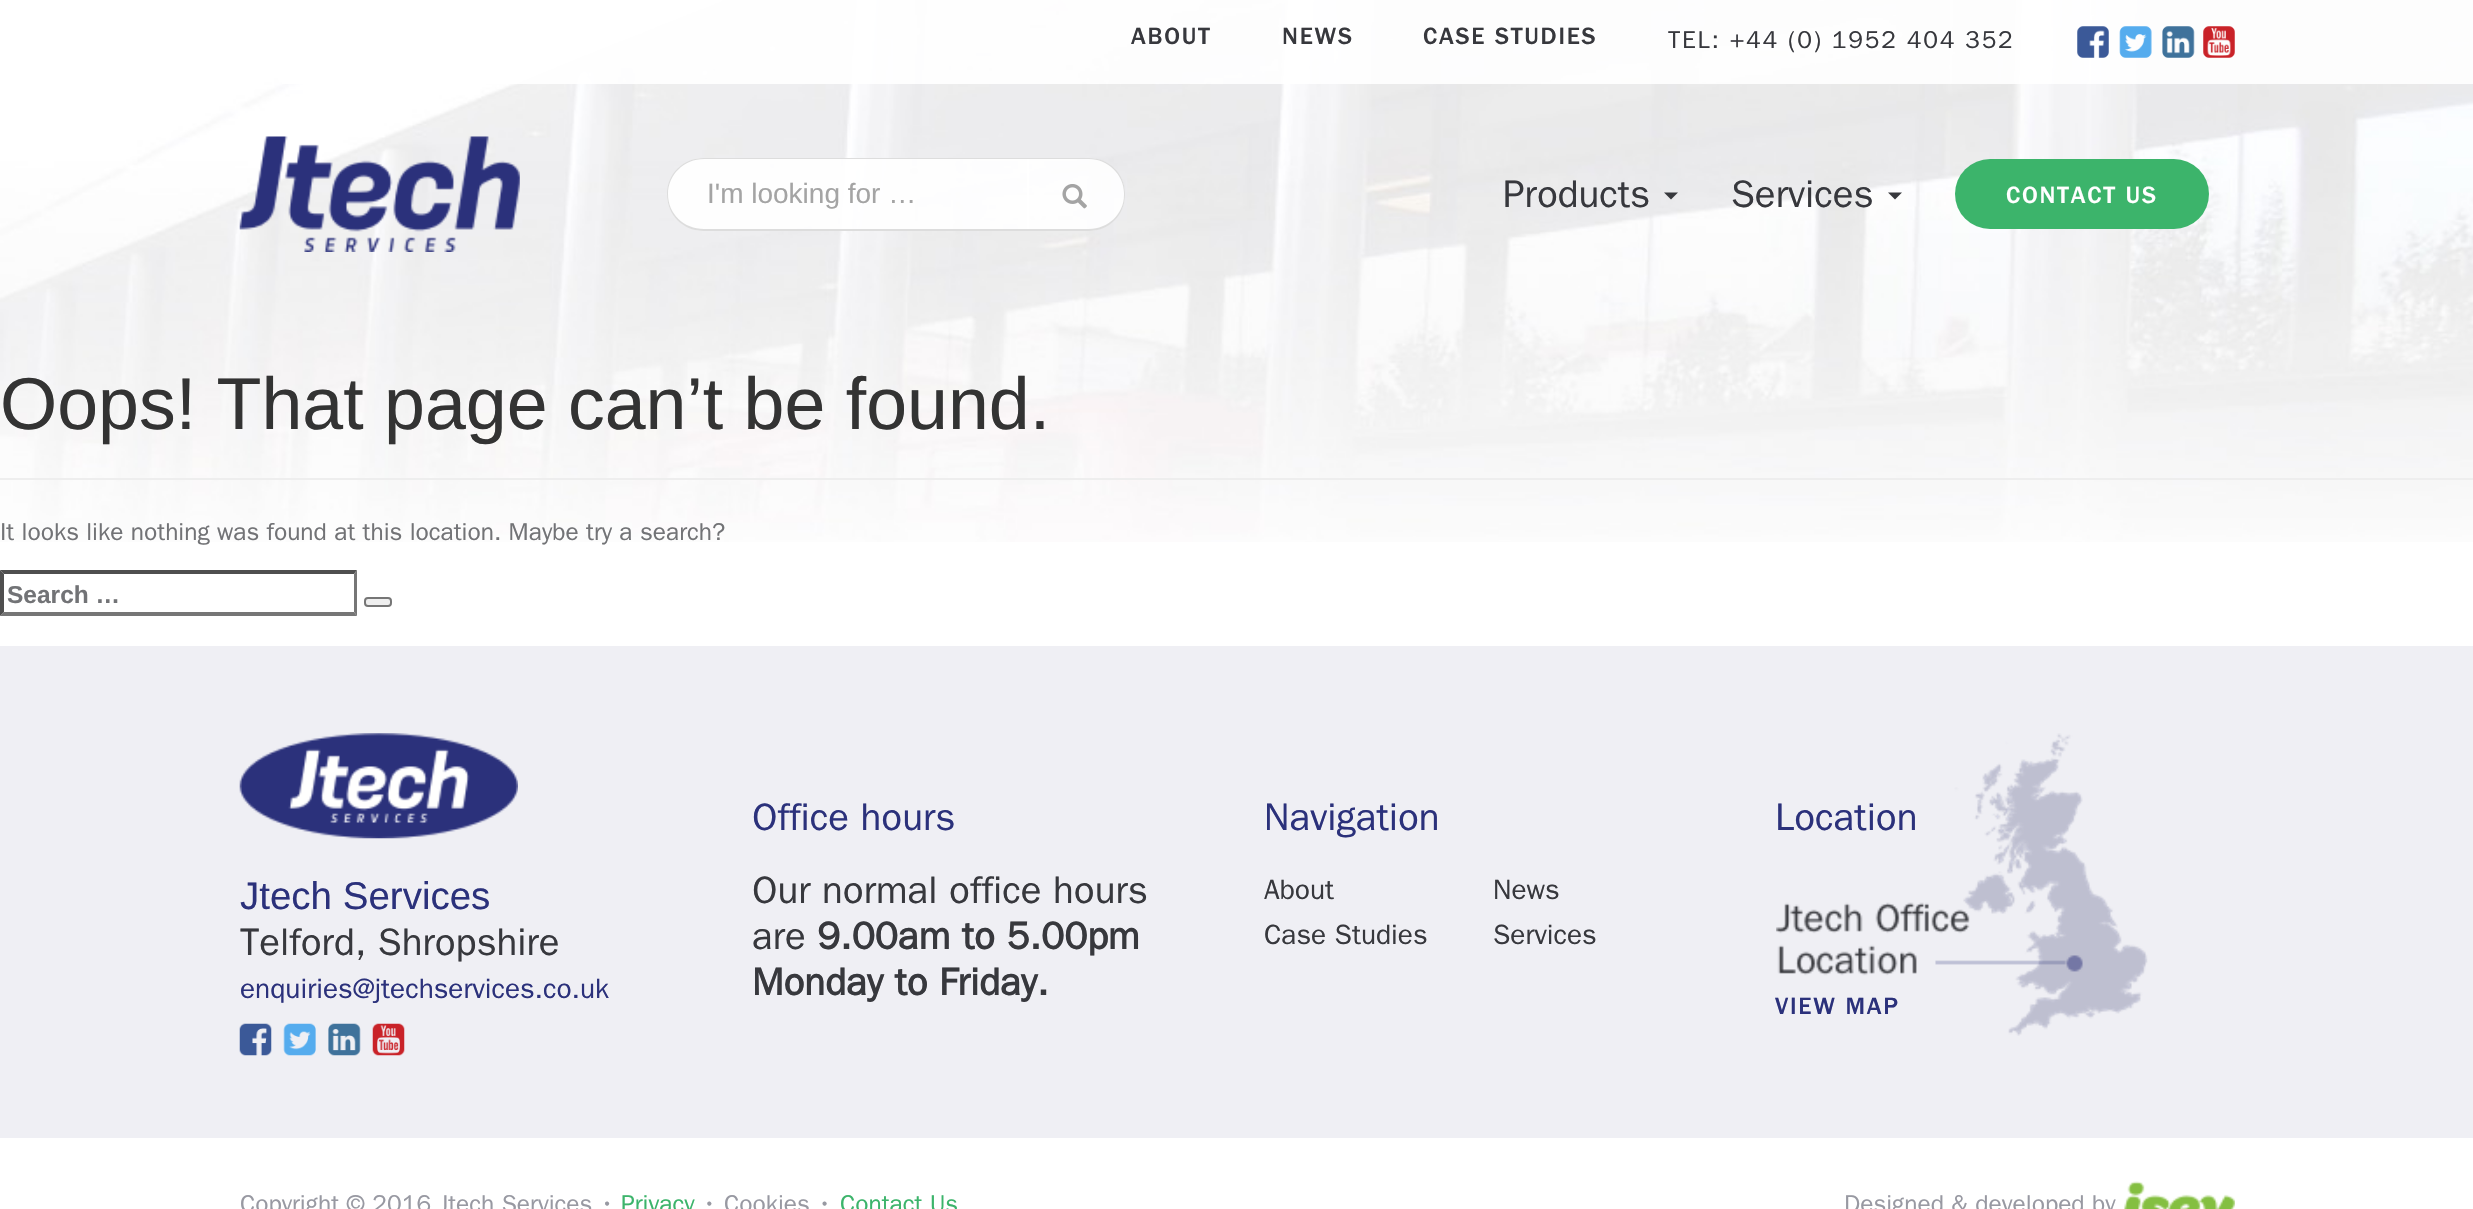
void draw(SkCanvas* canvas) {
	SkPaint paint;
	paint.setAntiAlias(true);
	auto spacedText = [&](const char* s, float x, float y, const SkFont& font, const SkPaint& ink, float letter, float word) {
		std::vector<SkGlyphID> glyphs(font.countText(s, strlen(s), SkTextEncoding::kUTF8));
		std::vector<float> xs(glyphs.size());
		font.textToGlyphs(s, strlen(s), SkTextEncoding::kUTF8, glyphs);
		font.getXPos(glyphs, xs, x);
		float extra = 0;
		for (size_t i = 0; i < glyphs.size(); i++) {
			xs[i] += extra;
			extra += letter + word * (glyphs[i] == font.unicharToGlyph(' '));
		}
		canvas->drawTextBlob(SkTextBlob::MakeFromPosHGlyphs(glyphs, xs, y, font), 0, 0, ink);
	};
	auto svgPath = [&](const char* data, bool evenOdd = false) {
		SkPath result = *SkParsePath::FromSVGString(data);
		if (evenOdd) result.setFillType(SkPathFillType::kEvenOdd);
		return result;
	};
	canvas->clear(0xffffffff);
	canvas->drawImageRect(SkImages::DeferredFromEncodedData(SkData::MakeFromFileName("img1.png")), SkRect::MakeXYWH(0, 0, 2473, 542), SkSamplingOptions());
	paint.setColor(0xe6ffffff);
	canvas->drawRect(SkRect::MakeXYWH(282, 0, 2191, 84), paint);
	SkFont f1(fontMgr->matchFamilyStyle("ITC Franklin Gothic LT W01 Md", SkFontStyle(500, SkFontStyle::kNormal_Width, SkFontStyle::kUpright_Slant)), 24.5);
	f1.setSubpixel(true);
	paint.setColor(0xff37383d);
	spacedText("ABOUT", 1131, 44, f1, paint, 1.75, 0);
	spacedText("NEWS", 1282, 44, f1, paint, 1.75, 0);
	spacedText("CASE STUDIES", 1423, 44, f1, paint, 1.75, 0);
	SkFont f2(fontMgr->matchFamilyStyle("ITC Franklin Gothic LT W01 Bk", SkFontStyle::Normal()), 24.5);
	f2.setSubpixel(true);
	spacedText("TEL: +44 (0) 1952 404 352", 1668, 48, f2, paint, 1.75, 0);
	canvas->drawImageRect(SkImages::DeferredFromEncodedData(SkData::MakeFromFileName("img2.png")), SkRect::MakeXYWH(2077, 26, 32, 32), SkSamplingOptions());
	canvas->drawImageRect(SkImages::DeferredFromEncodedData(SkData::MakeFromFileName("img3.png")), SkRect::MakeXYWH(2119, 26, 33, 32), SkSamplingOptions());
	canvas->drawImageRect(SkImages::DeferredFromEncodedData(SkData::MakeFromFileName("img4.png")), SkRect::MakeXYWH(2162, 26, 33, 32), SkSamplingOptions());
	canvas->drawImageRect(SkImages::DeferredFromEncodedData(SkData::MakeFromFileName("img5.png")), SkRect::MakeXYWH(2203, 26, 32, 32), SkSamplingOptions());
	canvas->drawImageRect(SkImages::DeferredFromEncodedData(SkData::MakeFromFileName("img6.png")), SkRect::MakeXYWH(239, 136, 281, 116), SkSamplingOptions());
	paint.setColor(0xe6ffffff);
	canvas->drawPath(svgPath("M703.5 158H1029V231H703.5C683.5 231 667 214.5 667 194.5C667 174.5 683.5 158 703.5 158Z"), paint);
	paint.setColor(0xffdddddd);
	canvas->drawPath(svgPath("M704 158H1029V231H704C683 231 667 215 667 194C667 174 683 158 704 158ZM704 159H1029V229H704C684 229 668 214 668 194C668 175 684 159 704 159Z", true), paint);
	SkFont f3(fontMgr->matchFamilyStyle("Liberation Sans", SkFontStyle::Normal()), 28);
	f3.setSubpixel(true);
	paint.setColor(0xffa4a4a4);
	canvas->drawString("I'm looking for …", 707, 203, f3, paint);
	paint.setColor(0xe6ffffff);
	canvas->drawPath(svgPath("M1027 158H1088.5C1108.5 158 1125 174.5 1125 194.5C1125 214.5 1108.5 231 1088.5 231H1027Z"), paint);
	paint.setColor(0xffdddddd);
	canvas->drawPath(svgPath("M1027 158H1089C1109 158 1125 174 1125 193V195C1125 215 1109 231 1089 231H1027ZM1027 159H1089C1108 159 1124 175 1124 193V195C1124 214 1108 229 1089 229H1027Z", true), paint);
	canvas->drawImageRect(SkImages::DeferredFromEncodedData(SkData::MakeFromFileName("img7.png")), SkRect::MakeXYWH(1062, 184, 25, 25), SkSamplingOptions());
	SkFont f4(fontMgr->matchFamilyStyle("ITC Franklin Gothic LT W01 Bk", SkFontStyle::Normal()), 38.5);
	f4.setSubpixel(true);
	paint.setColor(0xff37383d);
	canvas->drawString("Products", 1503, 207, f4, paint);
	canvas->drawPath(svgPath("M1664 192.5H1678L1671 199.5Z"), paint);
	canvas->drawString("Services", 1731, 207, f4, paint);
	canvas->drawPath(svgPath("M1888 192.5H1902L1895 199.5Z"), paint);
	paint.setColor(0xff3cb46b);
	canvas->drawRoundRect(SkRect::MakeXYWH(1955, 159, 254, 70), 35, 35, paint);
	paint.setColor(0xffffffff);
	spacedText("CONTACT US", 2006, 203, f1, paint, 1.75, 0);
	paint.setColor(0xffeeeeee);
	canvas->drawRect(SkRect::MakeXYWH(0, 478, 2473, 2), paint);
	SkFont f5(fontMgr->matchFamilyStyle("Liberation Sans", SkFontStyle::Normal()), 73.5);
	f5.setSubpixel(true);
	paint.setColor(0xff333333);
	canvas->drawString("Oops! That page can’t be found.", 0, 429, f5, paint);
	paint.setColor(0xff727376);
	canvas->drawString("It looks like nothing was found at this location. Maybe try a search?", 0, 540, f2, paint);
	paint.setColor(0xff4f4f4f);
	canvas->drawPath(svgPath("M0 570H357L354 574H4Z"), paint);
	paint.setColor(0xff767676);
	canvas->drawPath(svgPath("M357 570V616L354 612V574Z"), paint);
	canvas->drawPath(svgPath("M357 616H0L4 612H354Z"), paint);
	paint.setColor(0xff4f4f4f);
	canvas->drawPath(svgPath("M0 616V570L4 574V612Z"), paint);
	SkFont f6(fontMgr->matchFamilyStyle("Liberation Sans", SkFontStyle::Bold()), 24.5);
	f6.setSubpixel(true);
	paint.setColor(0xff727376);
	canvas->drawString("Search …", 7, 603, f6, paint);
	paint.setColor(0xffefefef);
	canvas->drawRoundRect(SkRect::MakeXYWH(365, 598, 26, 8), 3, 3, paint);
	paint.setStroke(true);
	paint.setStrokeWidth(2);
	paint.setColor(0xff767676);
	canvas->drawRoundRect(SkRect::MakeXYWH(365, 598, 26, 8), 3, 3, paint);
	paint.setStroke(false);
	paint.setColor(0xffefeff4);
	canvas->drawRect(SkRect::MakeXYWH(0, 646, 2473, 492), paint);
	canvas->drawImageRect(SkImages::DeferredFromEncodedData(SkData::MakeFromFileName("img8.png")), SkRect::MakeXYWH(239, 733, 279, 106), SkSamplingOptions());
	SkFont f7(fontMgr->matchFamilyStyle("Liberation Sans", SkFontStyle::Normal()), 38.5);
	f7.setSubpixel(true);
	paint.setColor(0xff2b317b);
	canvas->drawString("Jtech Services", 240, 909, f7, paint);
	paint.setColor(0xff37383d);
	canvas->drawString("Telford, Shropshire", 240, 955, f4, paint);
	SkFont f8(fontMgr->matchFamilyStyle("ITC Franklin Gothic LT W01 Bk", SkFontStyle::Normal()), 28);
	f8.setSubpixel(true);
	paint.setColor(0xff2b317b);
	canvas->drawString("enquiries@jtechservices.co.uk", 240, 998, f8, paint);
	canvas->drawImageRect(SkImages::DeferredFromEncodedData(SkData::MakeFromFileName("img9.png")), SkRect::MakeXYWH(239, 1023, 33, 33), SkSamplingOptions());
	canvas->drawImageRect(SkImages::DeferredFromEncodedData(SkData::MakeFromFileName("img10.png")), SkRect::MakeXYWH(283, 1023, 33, 33), SkSamplingOptions());
	canvas->drawImageRect(SkImages::DeferredFromEncodedData(SkData::MakeFromFileName("img11.png")), SkRect::MakeXYWH(328, 1023, 33, 33), SkSamplingOptions());
	canvas->drawImageRect(SkImages::DeferredFromEncodedData(SkData::MakeFromFileName("img12.png")), SkRect::MakeXYWH(372, 1023, 33, 33), SkSamplingOptions());
	canvas->drawString("Office hours", 752, 830, f4, paint);
	paint.setColor(0xff37383d);
	canvas->drawString("Our normal office hours", 752, 903, f4, paint);
	canvas->drawString("are", 752, 949, f4, paint);
	SkFont f9(fontMgr->matchFamilyStyle("ITC Franklin Gothic LT W01 Bk", SkFontStyle::Bold()), 38.5);
	f9.setSubpixel(true);
	canvas->drawString("9.00am to 5.00pm", 817, 949, f9, paint);
	canvas->drawString("Monday to Friday.", 752, 995, f9, paint);
	paint.setColor(0xff2b317b);
	canvas->drawString("Navigation", 1264, 830, f4, paint);
	paint.setColor(0xff37383d);
	canvas->drawString("About", 1264, 899, f8, paint);
	canvas->drawString("News", 1493, 899, f8, paint);
	canvas->drawString("Case Studies", 1264, 944, f8, paint);
	canvas->drawString("Services", 1493, 944, f8, paint);
	canvas->drawImageRect(SkImages::DeferredFromEncodedData(SkData::MakeFromFileName("img13.png")), SkRect::MakeXYWH(1776, 733, 372, 303), SkSamplingOptions());
	paint.setColor(0xff2b317b);
	canvas->drawString("Location", 1775, 830, f4, paint);
	spacedText("VIEW MAP", 1775, 1014, f1, paint, 1.75, 0);
	paint.setColor(0xff9899a2);
	canvas->drawString("Copyright © 2016 Jtech Services •", 240, 1212, f2, paint);
	paint.setColor(0xff3cb46b);
	canvas->drawString("Privacy", 621, 1212, f2, paint);
	paint.setColor(0xff9899a2);
	canvas->drawString("• Cookies •", 702, 1212, f2, paint);
	paint.setColor(0xff3cb46b);
	canvas->drawString("Contact Us", 840, 1212, f2, paint);
	paint.setColor(0xff9899a2);
	canvas->drawString("Designed & developed by", 1844, 1212, f2, paint);
	canvas->drawImageRect(SkImages::DeferredFromEncodedData(SkData::MakeFromFileName("img14.png")), SkRect::MakeXYWH(2124, 1181, 111, 28), SkSamplingOptions());
}
